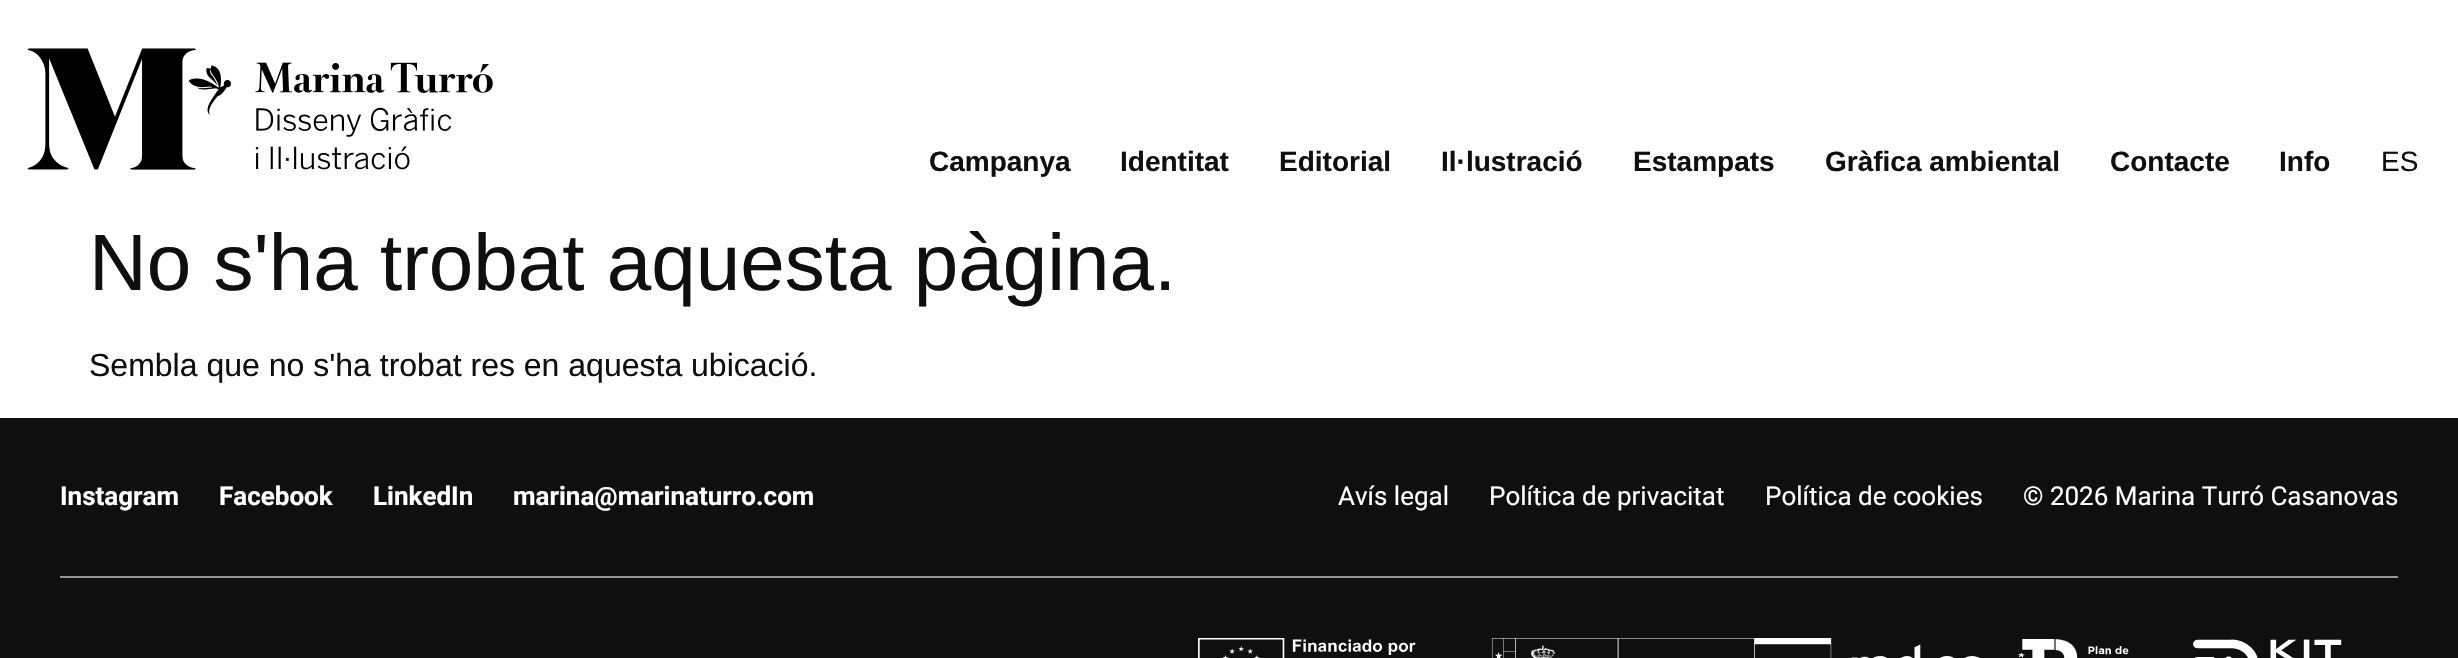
void draw(SkCanvas* canvas) {
	SkPaint paint;
	paint.setAntiAlias(true);
	canvas->clear(0xffffffff);
	canvas->drawImageRect(SkImages::DeferredFromEncodedData(SkData::MakeFromFileName("img1.png")), SkRect::MakeXYWH(27, 48, 466, 122), SkSamplingOptions());
	SkFont f1(fontMgr->matchFamilyStyle("Liberation Sans", SkFontStyle::Bold()), 28);
	f1.setSubpixel(true);
	paint.setColor(0xff0f0f0f);
	canvas->drawString("Campanya", 929, 171, f1, paint);
	canvas->drawString("Identitat", 1120, 171, f1, paint);
	canvas->drawString("Editorial", 1279, 171, f1, paint);
	canvas->drawString("Il·lustració", 1441, 171, f1, paint);
	canvas->drawString("Estampats", 1633, 171, f1, paint);
	canvas->drawString("Gràfica ambiental", 1825, 171, f1, paint);
	canvas->drawString("Contacte", 2110, 171, f1, paint);
	canvas->drawString("Info", 2279, 171, f1, paint);
	SkFont f2(fontMgr->matchFamilyStyle("Liberation Sans", SkFontStyle::Normal()), 28);
	f2.setSubpixel(true);
	canvas->drawString("ES", 2381, 171, f2, paint);
	SkFont f3(fontMgr->matchFamilyStyle("Liberation Sans", SkFontStyle::Normal()), 80);
	f3.setSubpixel(true);
	canvas->drawString("No s'ha trobat aquesta pàgina.", 89, 290, f3, paint);
	SkFont f4(fontMgr->matchFamilyStyle("Liberation Sans", SkFontStyle::Normal()), 32);
	f4.setSubpixel(true);
	canvas->drawString("Sembla que no s'ha trobat res en aquesta ubicació.", 89, 376, f4, paint);
	canvas->drawRect(SkRect::MakeXYWH(0, 418, 2458, 240), paint);
	SkFont f5(fontMgr->matchFamilyStyle("Roboto", SkFontStyle::Bold()), 26);
	f5.setSubpixel(true);
	paint.setColor(0xffffffff);
	canvas->drawString("Instagram", 60, 505, f5, paint);
	canvas->drawString("Facebook", 219, 505, f5, paint);
	canvas->drawString("LinkedIn", 373, 505, f5, paint);
	canvas->drawString("marina@marinaturro.com", 513, 505, f5, paint);
	SkFont f6(fontMgr->matchFamilyStyle("Roboto", SkFontStyle::Normal()), 26);
	f6.setSubpixel(true);
	canvas->drawString("Avís legal", 1338, 505, f6, paint);
	canvas->drawString("Política de privacitat", 1489, 505, f6, paint);
	canvas->drawString("Política de cookies", 1765, 505, f6, paint);
	canvas->drawString("© 2026 Marina Turró Casanovas", 2023, 505, f6, paint);
	paint.setColor(0xff959595);
	canvas->drawRect(SkRect::MakeXYWH(60, 576, 2338, 2), paint);
	canvas->drawImageRect(SkImages::DeferredFromEncodedData(SkData::MakeFromFileName("img2.png")), SkRect::MakeXYWH(1198, 638, 1144, 20), SkSamplingOptions());
}
